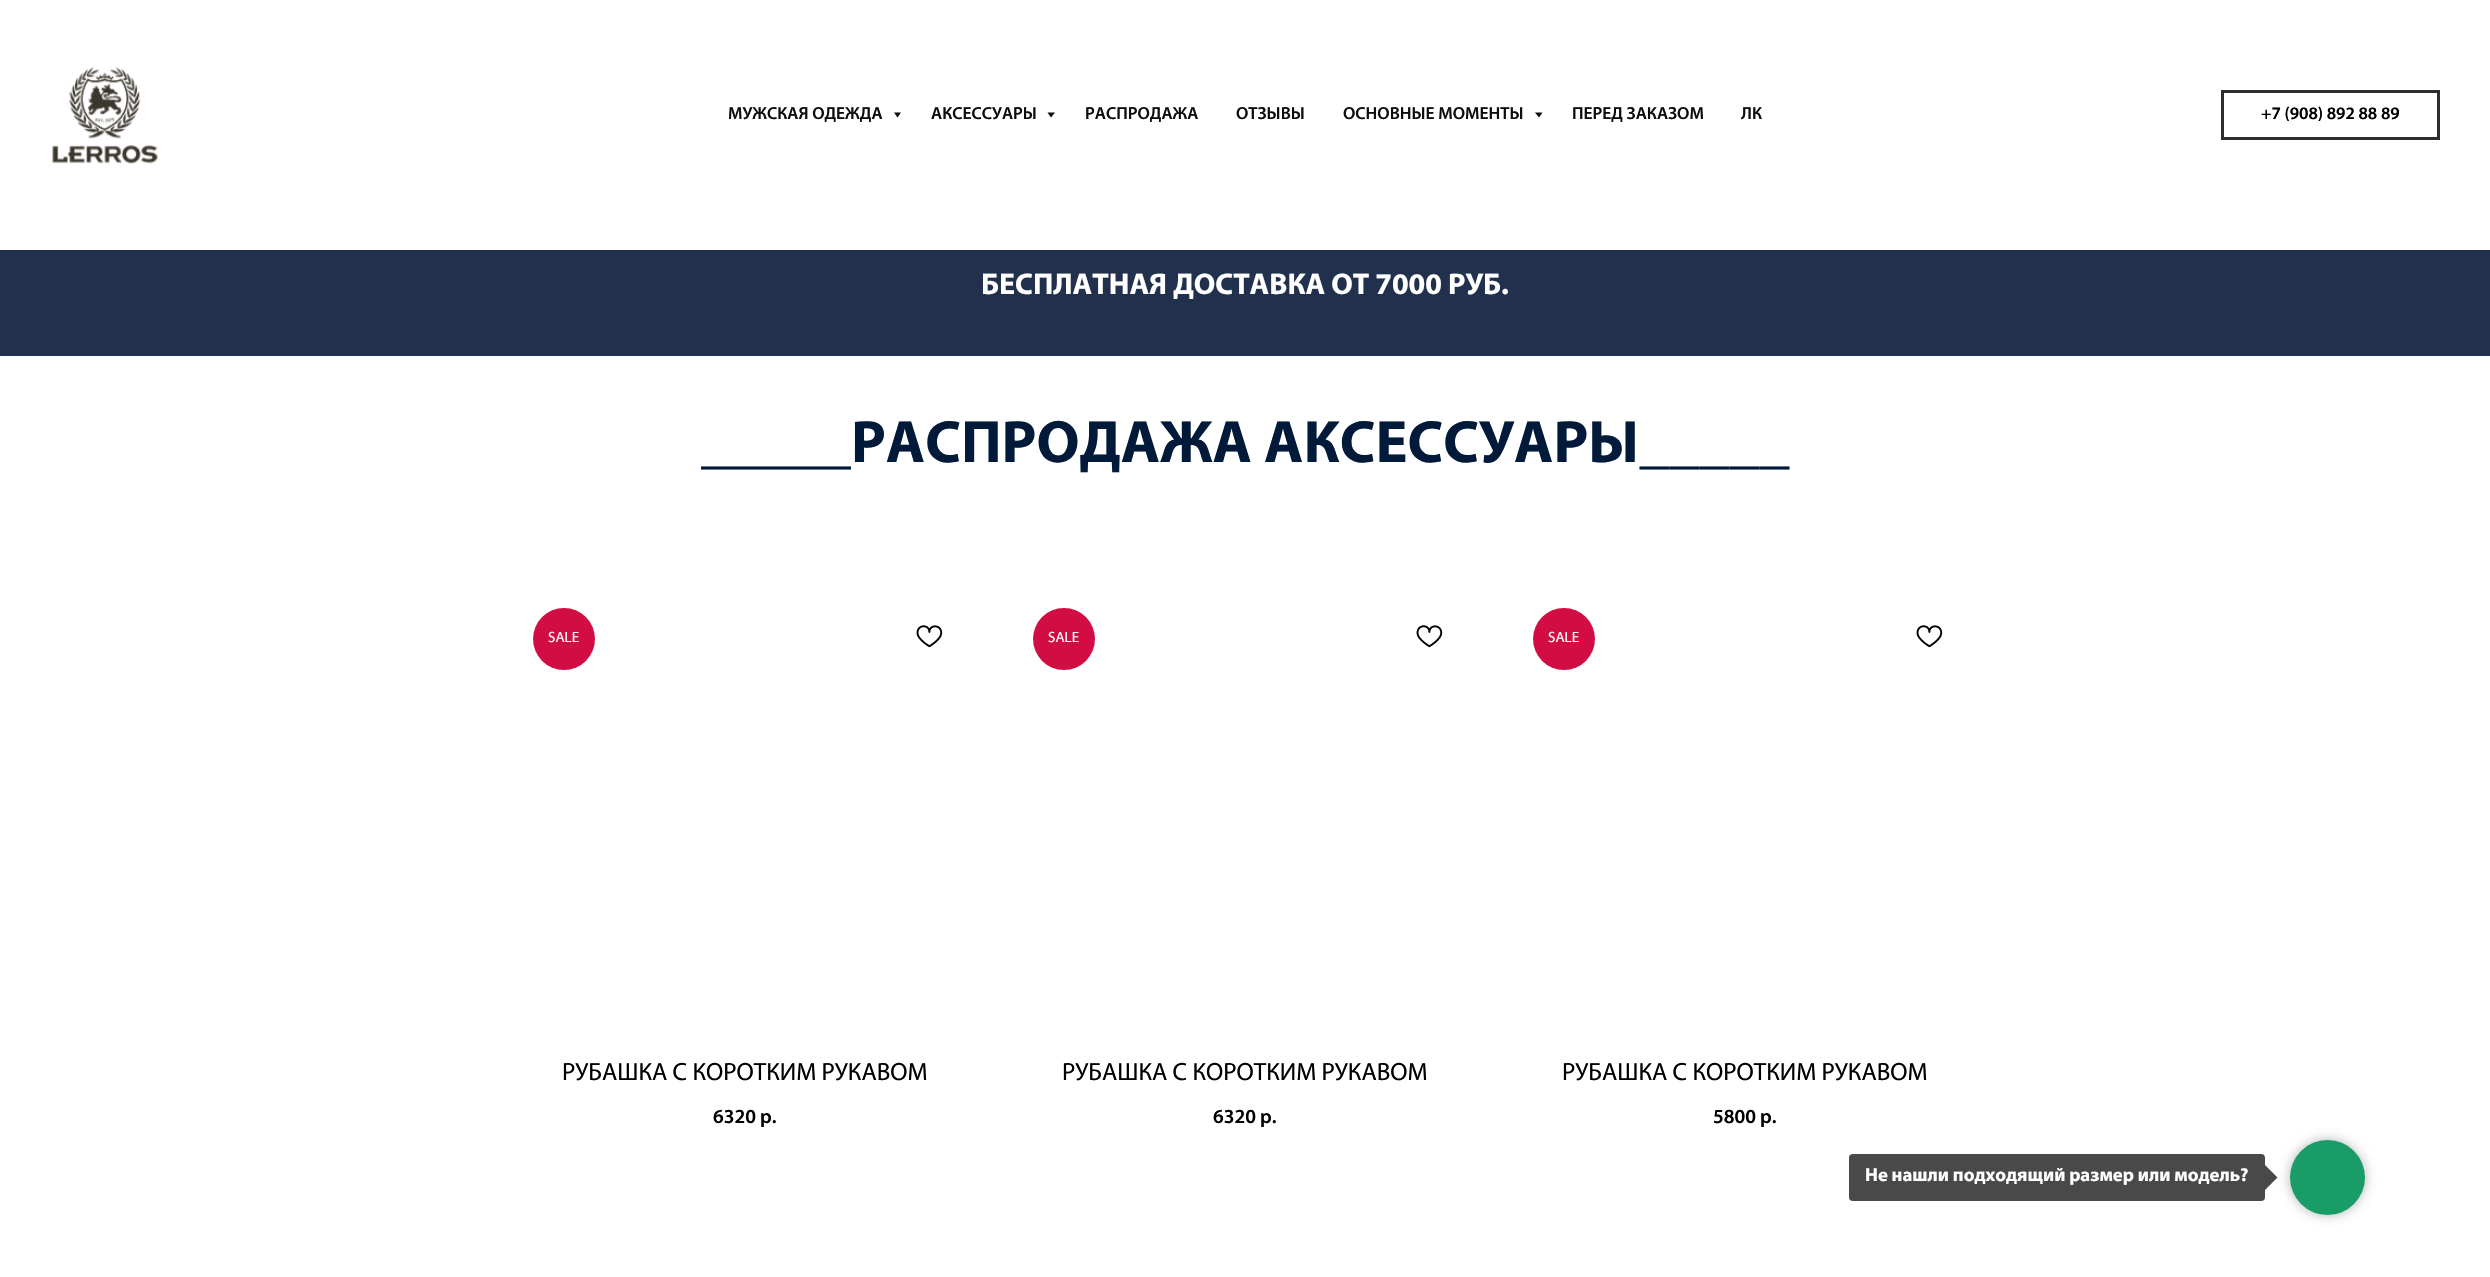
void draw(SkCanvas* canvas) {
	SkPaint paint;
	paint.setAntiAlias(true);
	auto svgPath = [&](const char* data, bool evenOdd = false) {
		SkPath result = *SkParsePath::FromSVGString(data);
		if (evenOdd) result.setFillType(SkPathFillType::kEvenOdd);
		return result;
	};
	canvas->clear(0xffffffff);
	canvas->drawImageRect(SkImages::DeferredFromEncodedData(SkData::MakeFromFileName("img1.png")), SkRect::MakeXYWH(52, 67, 106, 97), SkSamplingOptions());
	SkFont f1(fontMgr->matchFamilyStyle("Myriad", SkFontStyle(600, SkFontStyle::kNormal_Width, SkFontStyle::kUpright_Slant)), 17.5);
	f1.setSubpixel(true);
	paint.setColor(0xff0d0d0d);
	canvas->drawString("МУЖСКАЯ ОДЕЖДА", 728, 119, f1, paint);
	canvas->drawPath(svgPath("M894 112.5H901L897.5 117.5Z"), paint);
	canvas->drawString("АКСЕССУАРЫ", 931, 119, f1, paint);
	canvas->drawPath(svgPath("M1047.5 112.5H1055L1051 117.5Z"), paint);
	canvas->drawString("РАСПРОДАЖА", 1085, 119, f1, paint);
	canvas->drawString("ОТЗЫВЫ", 1236, 119, f1, paint);
	canvas->drawString("ОСНОВНЫЕ МОМЕНТЫ", 1343, 119, f1, paint);
	canvas->drawPath(svgPath("M1535 112.5H1542.5L1539 117.5Z"), paint);
	canvas->drawString("ПЕРЕД ЗАКАЗОМ", 1572, 119, f1, paint);
	canvas->drawString("ЛК", 1741, 119, f1, paint);
	paint.setStroke(true);
	paint.setStrokeWidth(3);
	paint.setColor(0xff2d2d2d);
	canvas->drawRect(SkRect::MakeXYWH(2222.5, 91.5, 216, 47), paint);
	paint.setStroke(false);
	paint.setColor(0xff000000);
	canvas->drawString("+7 (908) 892 88 89", 2261, 119, f1, paint);
	paint.setColor(0xff21314d);
	canvas->drawRect(SkRect::MakeXYWH(0, 250, 2490, 106), paint);
	SkFont f2(fontMgr->matchFamilyStyle("Myriad", SkFontStyle::Bold()), 30);
	f2.setSubpixel(true);
	paint.setColor(0xffffffff);
	canvas->drawString("БЕСПЛАТНАЯ ДОСТАВКА ОТ 7000 РУБ.", 981, 294, f2, paint);
	SkFont f3(fontMgr->matchFamilyStyle("Myriad", SkFontStyle::Bold()), 60);
	f3.setSubpixel(true);
	paint.setColor(0xff021a39);
	canvas->drawString("_____РАСПРОДАЖА АКСЕССУАРЫ_____", 701, 462, f3, paint);
	paint.setColor(0xffd20d44);
	canvas->drawCircle(564, 639, 31, paint);
	SkFont f4(fontMgr->matchFamilyStyle("Myriad", SkFontStyle::Normal()), 15);
	f4.setSubpixel(true);
	paint.setColor(0xffffffff);
	canvas->drawString("SALE", 548, 642, f4, paint);
	canvas->drawImageRect(SkImages::DeferredFromEncodedData(SkData::MakeFromFileName("img2.png")), SkRect::MakeXYWH(916, 625, 27, 23), SkSamplingOptions());
	SkFont f5(fontMgr->matchFamilyStyle("Myriad", SkFontStyle::Normal()), 25);
	f5.setSubpixel(true);
	paint.setColor(0xff000000);
	canvas->drawString("РУБАШКА С КОРОТКИМ РУКАВОМ", 562, 1080, f5, paint);
	SkFont f6(fontMgr->matchFamilyStyle("Myriad", SkFontStyle(600, SkFontStyle::kNormal_Width, SkFontStyle::kUpright_Slant)), 20);
	f6.setSubpixel(true);
	canvas->drawString("6320 р.", 713, 1123, f6, paint);
	paint.setColor(0xffd20d44);
	canvas->drawCircle(1064, 639, 31, paint);
	paint.setColor(0xffffffff);
	canvas->drawString("SALE", 1048, 642, f4, paint);
	canvas->drawImageRect(SkImages::DeferredFromEncodedData(SkData::MakeFromFileName("img2.png")), SkRect::MakeXYWH(1416, 625, 27, 23), SkSamplingOptions());
	paint.setColor(0xff000000);
	canvas->drawString("РУБАШКА С КОРОТКИМ РУКАВОМ", 1062, 1080, f5, paint);
	canvas->drawString("6320 р.", 1213, 1123, f6, paint);
	paint.setColor(0xffd20d44);
	canvas->drawCircle(1564, 639, 31, paint);
	paint.setColor(0xffffffff);
	canvas->drawString("SALE", 1548, 642, f4, paint);
	canvas->drawImageRect(SkImages::DeferredFromEncodedData(SkData::MakeFromFileName("img2.png")), SkRect::MakeXYWH(1916, 625, 27, 23), SkSamplingOptions());
	paint.setColor(0xff000000);
	canvas->drawString("РУБАШКА С КОРОТКИМ РУКАВОМ", 1562, 1080, f5, paint);
	canvas->drawString("5800 р.", 1713, 1123, f6, paint);
	paint.setColor(0xff494949);
	canvas->drawRoundRect(SkRect::MakeXYWH(1849, 1154, 416, 47), 4, 4, paint);
	SkFont f7(fontMgr->matchFamilyStyle("Myriad", SkFontStyle::Bold()), 18.75);
	f7.setSubpixel(true);
	paint.setColor(0xffffffff);
	canvas->drawString("Не нашли подходящий размер или модель?", 1865, 1181, f7, paint);
	paint.setColor(0xff494949);
	canvas->drawPath(svgPath("M2265 1190V1165L2277.5 1177.5Z"), paint);
	paint.setColor(0x4d000000);
	paint.setMaskFilter(SkMaskFilter::MakeBlur(kNormal_SkBlurStyle, 6));
	canvas->drawRoundRect(SkRect::MakeXYWH(2290, 1140, 75, 75), 37.5, 37.5, paint);
	paint.setMaskFilter(nullptr);
	paint.setColor(0xff199c68);
	canvas->drawCircle(2327.5, 1177.5, 37.5, paint);
}
